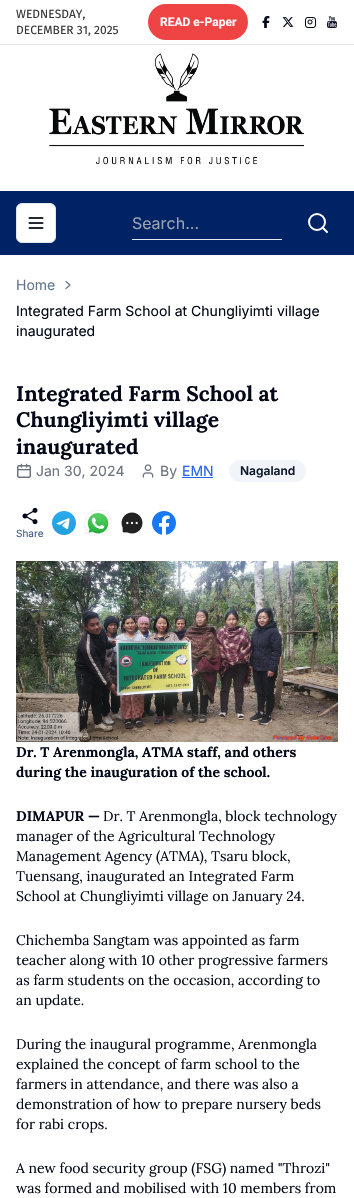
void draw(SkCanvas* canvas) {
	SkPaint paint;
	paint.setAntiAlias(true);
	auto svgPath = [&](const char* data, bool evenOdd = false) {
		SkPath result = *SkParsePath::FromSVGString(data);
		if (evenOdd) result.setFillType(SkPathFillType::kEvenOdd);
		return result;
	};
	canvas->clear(0xffffffff);
	paint.setColor(0xffe5e5e5);
	canvas->drawRect(SkRect::MakeXYWH(0, 44, 354, 1), paint);
	SkFont f1(fontMgr->matchFamilyStyle("Fira Sans", SkFontStyle::Normal()), 12);
	f1.setSubpixel(true);
	paint.setColor(0xff383838);
	canvas->drawString("WEDNESDAY,", 16, 18, f1, paint);
	canvas->drawString("DECEMBER 31, 2025", 16, 34, f1, paint);
	paint.setColor(0xffef4444);
	canvas->drawRoundRect(SkRect::MakeXYWH(148, 4, 100, 36), 18, 18, paint);
	SkFont f2(fontMgr->matchFamilyStyle("Roboto", SkFontStyle::Bold()), 12);
	f2.setSubpixel(true);
	paint.setColor(0xfff8fafc);
	canvas->drawString("READ e-Paper", 160, 26, f2, paint);
	canvas->drawImageRect(SkImages::DeferredFromEncodedData(SkData::MakeFromFileName("img1.png")), SkRect::MakeXYWH(262, 16, 8, 12), SkSamplingOptions());
	canvas->drawImageRect(SkImages::DeferredFromEncodedData(SkData::MakeFromFileName("img2.png")), SkRect::MakeXYWH(282, 17, 12, 10), SkSamplingOptions());
	canvas->drawImageRect(SkImages::DeferredFromEncodedData(SkData::MakeFromFileName("img3.png")), SkRect::MakeXYWH(305, 17, 11, 11), SkSamplingOptions());
	canvas->drawImageRect(SkImages::DeferredFromEncodedData(SkData::MakeFromFileName("img4.png")), SkRect::MakeXYWH(327, 16, 10, 12), SkSamplingOptions());
	canvas->drawImageRect(SkImages::DeferredFromEncodedData(SkData::MakeFromFileName("img5.png")), SkRect::MakeXYWH(49, 53, 255, 112), SkSamplingOptions());
	paint.setColor(0xff002366);
	canvas->drawRect(SkRect::MakeXYWH(0, 191, 354, 64), paint);
	paint.setColor(0xffffffff);
	canvas->drawRoundRect(SkRect::MakeXYWH(16.5, 203.5, 39, 39), 5.5, 5.5, paint);
	paint.setStroke(true);
	paint.setStrokeWidth(1);
	paint.setColor(0xffe2e8f0);
	canvas->drawRoundRect(SkRect::MakeXYWH(16.5, 203.5, 39, 39), 5.5, 5.5, paint);
	canvas->drawImageRect(SkImages::DeferredFromEncodedData(SkData::MakeFromFileName("img6.png")), SkRect::MakeXYWH(28, 217, 16, 12), SkSamplingOptions());
	paint.setStroke(false);
	canvas->drawRect(SkRect::MakeXYWH(132, 239, 150, 1), paint);
	SkFont f3(fontMgr->matchFamilyStyle("Inter", SkFontStyle::Normal()), 16);
	f3.setSubpixel(true);
	paint.setColor(0xff9ca3af);
	canvas->drawString("Search...", 132, 229, f3, paint);
	paint.setStroke(true);
	paint.setStrokeWidth(2);
	paint.setColor(0xffffffff);
	canvas->drawCircle(317, 222, 8, paint);
	paint.setStrokeCap(SkPaint::kRound_Cap);
	paint.setStrokeJoin(SkPaint::kRound_Join);
	canvas->drawPath(svgPath("M327 232L322.5 227.5"), paint);
	SkFont f4(fontMgr->matchFamilyStyle("Inter", SkFontStyle::Normal()), 14);
	f4.setSubpixel(true);
	paint.setStroke(false);
	paint.setColor(0xff64748b);
	canvas->drawString("Home", 16, 290, f4, paint);
	paint.setStroke(true);
	paint.setStrokeWidth(1.2);
	canvas->drawPath(svgPath("M66 288.5L70 285L66 281.5"), paint);
	paint.setStroke(false);
	paint.setColor(0xff020817);
	canvas->drawString("Integrated Farm School at Chungliyimti village", 16, 316, f4, paint);
	canvas->drawString("inaugurated", 16, 336, f4, paint);
	SkFont f5(fontMgr->matchFamilyStyle("Lora", SkFontStyle::Bold()), 21);
	f5.setSubpixel(true);
	canvas->drawString("Integrated Farm School at", 16, 401, f5, paint);
	canvas->drawString("Chungliyimti village", 16, 427, f5, paint);
	canvas->drawString("inaugurated", 16, 454, f5, paint);
	canvas->drawImageRect(SkImages::DeferredFromEncodedData(SkData::MakeFromFileName("img7.png")), SkRect::MakeXYWH(17, 463, 14, 15), SkSamplingOptions());
	paint.setColor(0xff6b7280);
	canvas->drawString("Jan 30, 2024", 36, 476, f4, paint);
	canvas->drawImageRect(SkImages::DeferredFromEncodedData(SkData::MakeFromFileName("img8.png")), SkRect::MakeXYWH(142, 464, 12, 14), SkSamplingOptions());
	canvas->drawString("By", 160, 476, f4, paint);
	paint.setColor(0xff2563eb);
	canvas->drawString("EMN", 182, 476, f4, paint);
	canvas->drawRect(SkRect::MakeXYWH(182, 477, 31, 1), paint);
	paint.setColor(0xfff1f5f9);
	canvas->drawRoundRect(SkRect::MakeXYWH(229, 460, 77, 22), 11, 11, paint);
	SkFont f6(fontMgr->matchFamilyStyle("Inter", SkFontStyle(600, SkFontStyle::kNormal_Width, SkFontStyle::kUpright_Slant)), 12);
	f6.setSubpixel(true);
	paint.setColor(0xff0f172a);
	canvas->drawString("Nagaland", 240, 475, f6, paint);
	canvas->drawImageRect(SkImages::DeferredFromEncodedData(SkData::MakeFromFileName("img9.png")), SkRect::MakeXYWH(22, 507, 16, 18), SkSamplingOptions());
	SkFont f7(fontMgr->matchFamilyStyle("Inter", SkFontStyle::Normal()), 10);
	f7.setSubpixel(true);
	paint.setColor(0xff3d5a80);
	canvas->drawString("Share", 16, 537, f7, paint);
	canvas->drawImageRect(SkImages::DeferredFromEncodedData(SkData::MakeFromFileName("img10.png")), SkRect::MakeXYWH(52, 511, 24, 24), SkSamplingOptions());
	canvas->drawImageRect(SkImages::DeferredFromEncodedData(SkData::MakeFromFileName("img11.png")), SkRect::MakeXYWH(84, 510, 28, 26), SkSamplingOptions());
	canvas->drawImageRect(SkImages::DeferredFromEncodedData(SkData::MakeFromFileName("img12.png")), SkRect::MakeXYWH(121, 512, 22, 22), SkSamplingOptions());
	canvas->drawImageRect(SkImages::DeferredFromEncodedData(SkData::MakeFromFileName("img13.png")), SkRect::MakeXYWH(152, 511, 24, 24), SkSamplingOptions());
	canvas->drawImageRect(SkImages::DeferredFromEncodedData(SkData::MakeFromFileName("img14.png")), SkRect::MakeXYWH(16, 561, 322, 181), SkSamplingOptions());
	SkFont f8(fontMgr->matchFamilyStyle("Lora", SkFontStyle::Bold()), 14);
	f8.setSubpixel(true);
	paint.setColor(0xff020817);
	canvas->drawString("Dr. T Arenmongla, ATMA staff, and others", 16, 757, f8, paint);
	canvas->drawString("during the inauguration of the school.", 16, 777, f8, paint);
	canvas->drawString("DIMAPUR —", 16, 821, f8, paint);
	SkFont f9(fontMgr->matchFamilyStyle("Lora", SkFontStyle::Normal()), 14);
	f9.setSubpixel(true);
	canvas->drawString("Dr. T Arenmongla, block technology", 103, 821, f9, paint);
	canvas->drawString("manager of the Agricultural Technology", 16, 841, f9, paint);
	canvas->drawString("Management Agency (ATMA), Tsaru block,", 16, 861, f9, paint);
	canvas->drawString("Tuensang, inaugurated an Integrated Farm", 16, 881, f9, paint);
	canvas->drawString("School at Chungliyimti village on January 24.", 16, 901, f9, paint);
	canvas->drawString("Chichemba Sangtam was appointed as farm", 16, 945, f9, paint);
	canvas->drawString("teacher along with 10 other progressive farmers", 16, 965, f9, paint);
	canvas->drawString("as farm students on the occasion, according to", 16, 985, f9, paint);
	canvas->drawString("an update.", 16, 1005, f9, paint);
	canvas->drawString("During the inaugural programme, Arenmongla", 16, 1049, f9, paint);
	canvas->drawString("explained the concept of farm school to the", 16, 1069, f9, paint);
	canvas->drawString("farmers in attendance, and there was also a", 16, 1089, f9, paint);
	canvas->drawString("demonstration of how to prepare nursery beds", 16, 1109, f9, paint);
	canvas->drawString("for rabi crops.", 16, 1129, f9, paint);
	canvas->drawString("A new food security group (FSG) named \"Throzi\"", 16, 1173, f9, paint);
	canvas->drawString("was formed and mobilised with 10 members from", 16, 1193, f9, paint);
}
